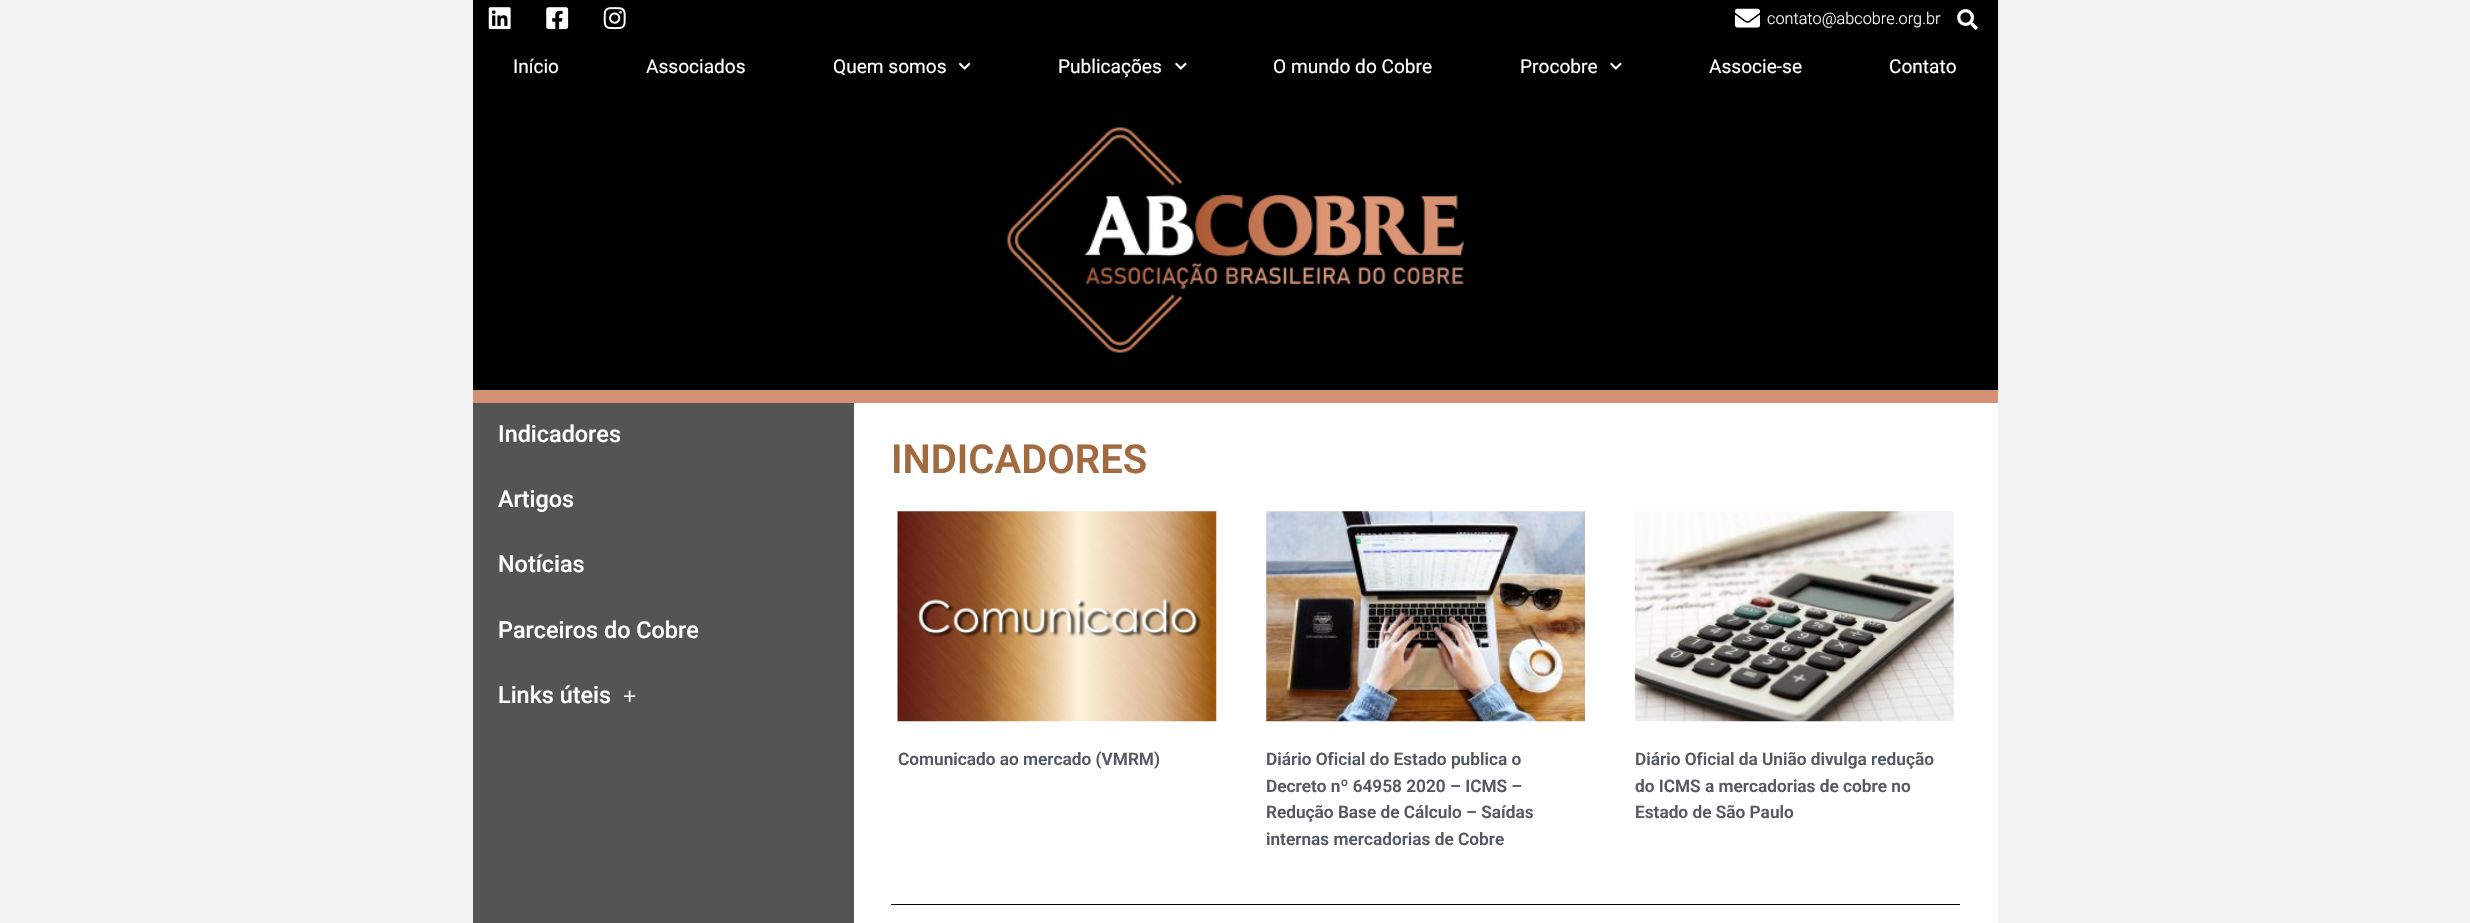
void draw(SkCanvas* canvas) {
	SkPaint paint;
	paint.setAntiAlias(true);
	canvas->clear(0xfff2f2f2);
	paint.setColor(0xff000000);
	canvas->drawRect(SkRect::MakeXYWH(473, 0, 1525, 390), paint);
	paint.setColor(0xffd29172);
	canvas->drawRect(SkRect::MakeXYWH(473, 390, 1525, 13), paint);
	canvas->drawImageRect(SkImages::DeferredFromEncodedData(SkData::MakeFromFileName("img1.png")), SkRect::MakeXYWH(1007, 127, 457, 226), SkSamplingOptions());
	canvas->drawImageRect(SkImages::DeferredFromEncodedData(SkData::MakeFromFileName("img2.png")), SkRect::MakeXYWH(488, 7, 23, 23), SkSamplingOptions());
	canvas->drawImageRect(SkImages::DeferredFromEncodedData(SkData::MakeFromFileName("img3.png")), SkRect::MakeXYWH(546, 7, 23, 23), SkSamplingOptions());
	canvas->drawImageRect(SkImages::DeferredFromEncodedData(SkData::MakeFromFileName("img4.png")), SkRect::MakeXYWH(603, 7, 23, 23), SkSamplingOptions());
	canvas->drawImageRect(SkImages::DeferredFromEncodedData(SkData::MakeFromFileName("img5.png")), SkRect::MakeXYWH(1735, 8, 25, 20), SkSamplingOptions());
	SkFont f1(fontMgr->matchFamilyStyle("Roboto", SkFontStyle(300, SkFontStyle::kNormal_Width, SkFontStyle::kUpright_Slant)), 16.25);
	f1.setSubpixel(true);
	paint.setColor(0xffffffff);
	canvas->drawString("contato@abcobre.org.br", 1767, 24, f1, paint);
	canvas->drawImageRect(SkImages::DeferredFromEncodedData(SkData::MakeFromFileName("img6.png")), SkRect::MakeXYWH(1957, 9, 21, 21), SkSamplingOptions());
	SkFont f2(fontMgr->matchFamilyStyle("Roboto", SkFontStyle::Normal()), 19.1);
	f2.setSubpixel(true);
	canvas->drawString("Início", 513, 73, f2, paint);
	canvas->drawString("Associados", 646, 73, f2, paint);
	canvas->drawString("Quem somos", 833, 73, f2, paint);
	canvas->drawImageRect(SkImages::DeferredFromEncodedData(SkData::MakeFromFileName("img7.png")), SkRect::MakeXYWH(959, 62, 12, 8), SkSamplingOptions());
	canvas->drawString("Publicações", 1058, 73, f2, paint);
	canvas->drawImageRect(SkImages::DeferredFromEncodedData(SkData::MakeFromFileName("img8.png")), SkRect::MakeXYWH(1175, 62, 12, 8), SkSamplingOptions());
	canvas->drawString("O mundo do Cobre", 1273, 73, f2, paint);
	canvas->drawString("Procobre", 1520, 73, f2, paint);
	canvas->drawImageRect(SkImages::DeferredFromEncodedData(SkData::MakeFromFileName("img8.png")), SkRect::MakeXYWH(1610, 62, 12, 8), SkSamplingOptions());
	canvas->drawString("Associe-se", 1709, 73, f2, paint);
	canvas->drawString("Contato", 1889, 73, f2, paint);
	paint.setColor(0xff545454);
	canvas->drawRect(SkRect::MakeXYWH(473, 403, 381, 520), paint);
	SkFont f3(fontMgr->matchFamilyStyle("Roboto", SkFontStyle(500, SkFontStyle::kNormal_Width, SkFontStyle::kUpright_Slant)), 23.4);
	f3.setSubpixel(true);
	paint.setColor(0xffffffff);
	canvas->drawString("Indicadores", 498, 442, f3, paint);
	canvas->drawString("Artigos", 498, 507, f3, paint);
	canvas->drawString("Notícias", 498, 572, f3, paint);
	canvas->drawString("Parceiros do Cobre", 498, 638, f3, paint);
	canvas->drawString("Links úteis", 498, 703, f3, paint);
	SkFont f4(fontMgr->matchFamilyStyle("Liberation Serif", SkFontStyle::Bold()), 23.4);
	f4.setSubpixel(true);
	canvas->drawString("+", 623, 704, f4, paint);
	canvas->drawRect(SkRect::MakeXYWH(854, 403, 1144, 520), paint);
	SkFont f5(fontMgr->matchFamilyStyle("Roboto", SkFontStyle(600, SkFontStyle::kNormal_Width, SkFontStyle::kUpright_Slant)), 40);
	f5.setSubpixel(true);
	paint.setColor(0xffa16b3f);
	canvas->drawString("INDICADORES", 891, 473, f5, paint);
	canvas->drawImageRect(SkImages::DeferredFromEncodedData(SkData::MakeFromFileName("img9.png")), SkRect::MakeXYWH(897, 511, 320, 211), SkSamplingOptions());
	SkFont f6(fontMgr->matchFamilyStyle("Roboto", SkFontStyle(600, SkFontStyle::kNormal_Width, SkFontStyle::kUpright_Slant)), 17.25);
	f6.setSubpixel(true);
	paint.setColor(0xff54595f);
	canvas->drawString("Comunicado ao mercado (VMRM)", 898, 765, f6, paint);
	canvas->drawImageRect(SkImages::DeferredFromEncodedData(SkData::MakeFromFileName("img10.png")), SkRect::MakeXYWH(1266, 511, 319, 211), SkSamplingOptions());
	canvas->drawString("Diário Oficial do Estado publica o", 1266, 765, f6, paint);
	canvas->drawString("Decreto nº 64958 2020 – ICMS –", 1266, 792, f6, paint);
	canvas->drawString("Redução Base de Cálculo – Saídas", 1266, 818, f6, paint);
	canvas->drawString("internas mercadorias de Cobre", 1266, 845, f6, paint);
	canvas->drawImageRect(SkImages::DeferredFromEncodedData(SkData::MakeFromFileName("img11.png")), SkRect::MakeXYWH(1635, 511, 319, 211), SkSamplingOptions());
	canvas->drawString("Diário Oficial da União divulga redução", 1635, 765, f6, paint);
	canvas->drawString("do ICMS a mercadorias de cobre no", 1635, 792, f6, paint);
	canvas->drawString("Estado de São Paulo", 1635, 818, f6, paint);
	paint.setColor(0xff000000);
	canvas->drawRect(SkRect::MakeXYWH(891, 904, 1069, 1), paint);
}
